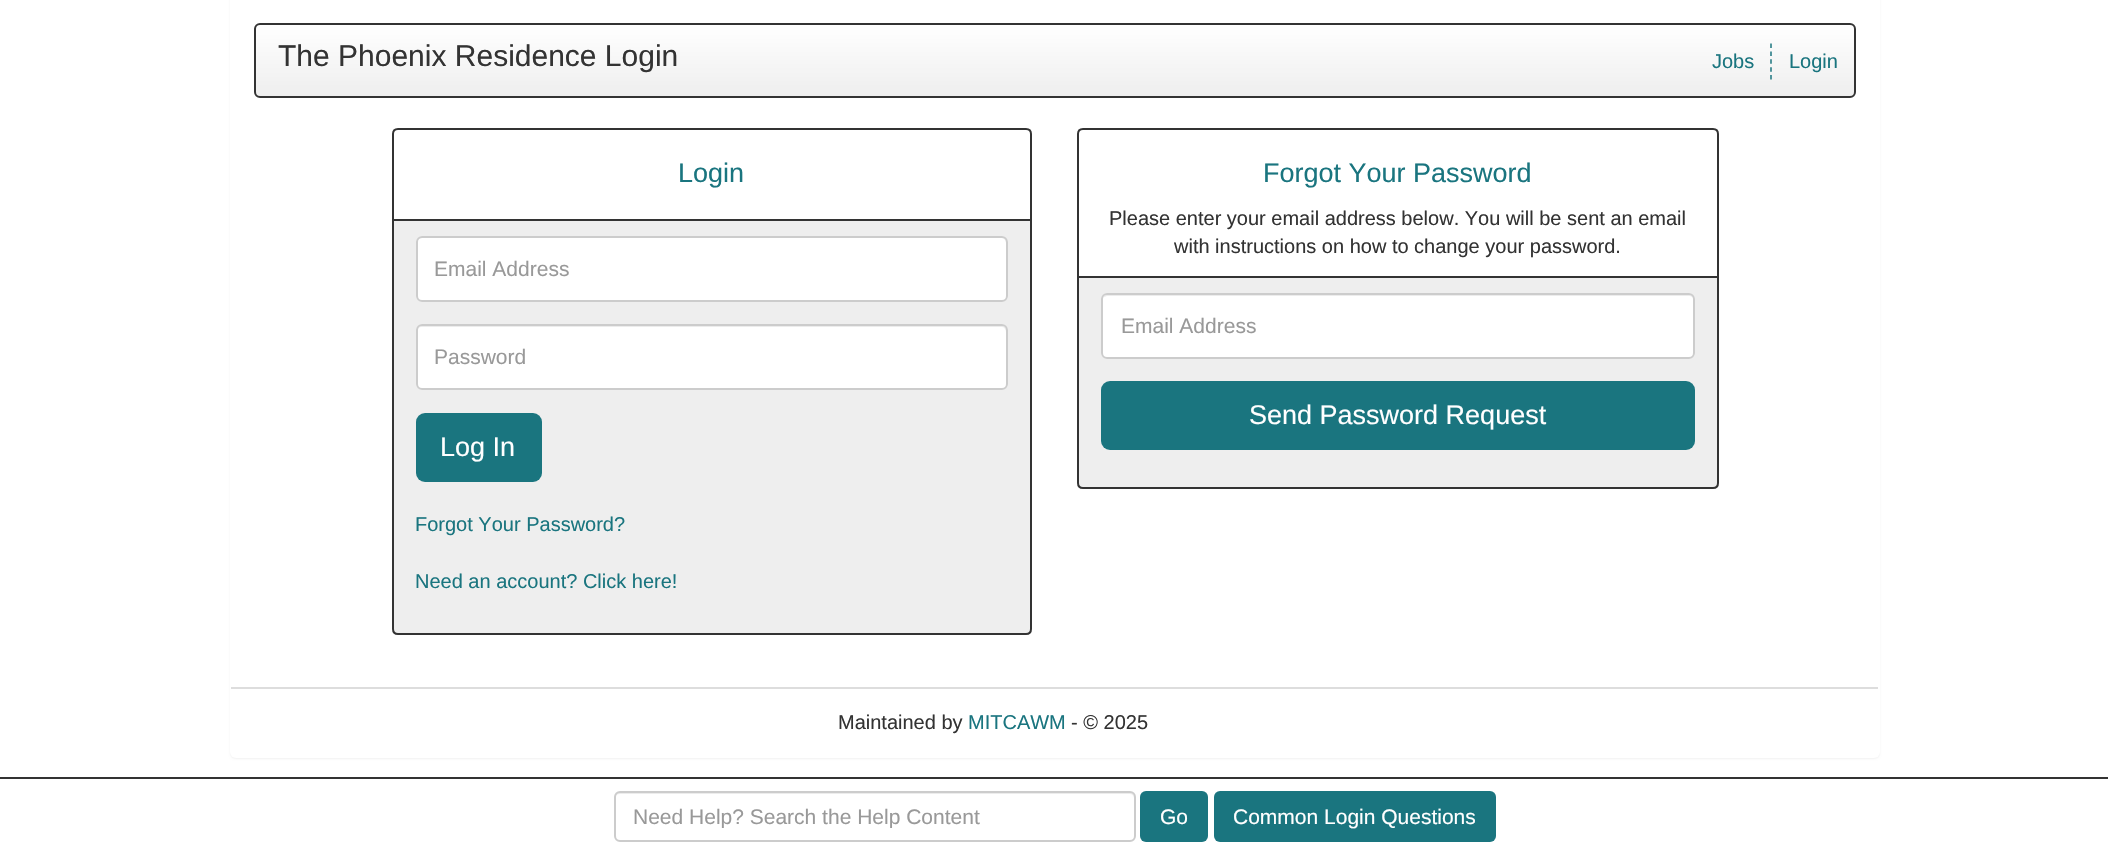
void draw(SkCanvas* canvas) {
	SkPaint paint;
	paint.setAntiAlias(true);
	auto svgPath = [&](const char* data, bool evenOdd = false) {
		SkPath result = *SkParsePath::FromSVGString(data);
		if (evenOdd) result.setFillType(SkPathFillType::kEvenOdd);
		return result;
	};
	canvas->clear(0xffffffff);
	paint.setColor(0x0d000000);
	paint.setMaskFilter(SkMaskFilter::MakeBlur(kNormal_SkBlurStyle, 1));
	canvas->drawRoundRect(SkRect::MakeXYWH(230, -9, 1650, 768), 6, 6, paint);
	paint.setMaskFilter(nullptr);
	paint.setColor(0xffffffff);
	canvas->drawRoundRect(SkRect::MakeXYWH(230, -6, 1650, 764), 6, 6, paint);
	canvas->save();
	canvas->clipPath(svgPath("M260 23H1850C1853.5 23 1856 25.5 1856 29V92C1856 95.5 1853.5 98 1850 98H260C256.5 98 254 95.5 254 92V29C254 25.5 256.5 23 260 23Z"), true);
	{
		const SkColor colors[] = {0xffffffff, 0xffeeeeee};
		const float stops[] = {0, 1};
		const SkPoint ends[] = {{1055, 24}, {1055, 96}};
		paint.setShader(SkGradientShader::MakeLinear(ends, colors, stops, 2, SkTileMode::kClamp));
		paint.setAlpha(255);
	}
	canvas->drawRect(SkRect::MakeXYWH(254, 24, 1602, 72), paint);
	canvas->restore();
	paint.setStroke(true);
	paint.setStrokeWidth(2);
	paint.setShader(nullptr);
	paint.setColor(0xff333333);
	canvas->drawRoundRect(SkRect::MakeXYWH(255, 24, 1600, 73), 5, 5, paint);
	SkFont f1(fontMgr->matchFamilyStyle("Liberation Sans", SkFontStyle::Normal()), 30);
	f1.setSubpixel(true);
	paint.setStroke(false);
	canvas->drawString("The Phoenix Residence Login", 278, 66, f1, paint);
	SkFont f2(fontMgr->matchFamilyStyle("Liberation Sans", SkFontStyle::Normal()), 20);
	f2.setSubpixel(true);
	paint.setColor(0xff1a757f);
	canvas->drawString("Jobs", 1712, 68, f2, paint);
	paint.setStroke(true);
	paint.setStrokeWidth(1.5);
	paint.setPathEffect(SkDashPathEffect::Make({{4.5f, 3.38f}}, 0));
	canvas->drawPath(svgPath("M1771 43.5V79.5"), paint);
	paint.setPathEffect(nullptr);
	paint.setStroke(false);
	canvas->drawString("Login", 1789, 68, f2, paint);
	paint.setStroke(true);
	paint.setStrokeWidth(2);
	paint.setColor(0xff333333);
	canvas->drawPath(svgPath("M398 129H1026C1029 129 1031 131 1031 134V220H393V134C393 131 395 129 398 129Z"), paint);
	SkFont f3(fontMgr->matchFamilyStyle("Liberation Sans", SkFontStyle::Normal()), 27);
	f3.setSubpixel(true);
	paint.setStroke(false);
	paint.setColor(0xff1a757f);
	canvas->drawString("Login", 678, 182, f3, paint);
	paint.setColor(0xffeeeeee);
	canvas->drawPath(svgPath("M393 220H1031V629C1031 632 1029 634 1026 634H398C395 634 393 632 393 629Z"), paint);
	paint.setStroke(true);
	paint.setColor(0xff333333);
	canvas->drawPath(svgPath("M393 220H1031V629C1031 632 1029 634 1026 634H398C395 634 393 632 393 629Z"), paint);
	paint.setStroke(false);
	paint.setColor(0xffffffff);
	canvas->drawRoundRect(SkRect::MakeXYWH(416, 236, 592, 66), 6, 6, paint);
	paint.setColor(0xffececec);
	canvas->drawPath(svgPath("M422 238H1002C1004 238 1006 241 1006 243V298C1007 297 1007 296 1007 295V242C1007 239 1005 237 1002 237H422C419 237 417 239 417 242V243C417 241 419 238 422 238Z"), paint);
	paint.setStroke(true);
	paint.setColor(0xffcccccc);
	canvas->drawRoundRect(SkRect::MakeXYWH(417, 237, 590, 64), 5, 5, paint);
	SkFont f4(fontMgr->matchFamilyStyle("Liberation Sans", SkFontStyle::Normal()), 21);
	f4.setSubpixel(true);
	paint.setStroke(false);
	paint.setColor(0xff999999);
	canvas->drawString("Email Address", 434, 276, f4, paint);
	paint.setColor(0xffffffff);
	canvas->drawRoundRect(SkRect::MakeXYWH(416, 324, 592, 66), 6, 6, paint);
	paint.setColor(0xffececec);
	canvas->drawPath(svgPath("M422 327H1002C1004 327 1006 329 1006 332V387C1007 386 1007 385 1007 384V331C1007 328 1005 326 1002 326H422C419 326 417 328 417 331V332C417 329 419 327 422 327Z"), paint);
	paint.setStroke(true);
	paint.setColor(0xffcccccc);
	canvas->drawRoundRect(SkRect::MakeXYWH(417, 325, 590, 64), 5, 5, paint);
	paint.setStroke(false);
	paint.setColor(0xff999999);
	canvas->drawString("Password", 434, 364, f4, paint);
	paint.setColor(0xff1a757f);
	canvas->drawRoundRect(SkRect::MakeXYWH(416, 413, 126, 69), 9, 9, paint);
	paint.setColor(0xffffffff);
	canvas->drawString("Log In", 440, 456, f3, paint);
	paint.setColor(0xff1a757f);
	canvas->drawString("Forgot Your Password?", 415, 531, f2, paint);
	canvas->drawString("Need an account? Click here!", 415, 588, f2, paint);
	paint.setStroke(true);
	paint.setColor(0xff333333);
	canvas->drawPath(svgPath("M1083 129H1713C1716 129 1718 131 1718 134V277H1078V134C1078 131 1080 129 1083 129Z"), paint);
	paint.setStroke(false);
	paint.setColor(0xff1a757f);
	canvas->drawString("Forgot Your Password", 1263, 182, f3, paint);
	paint.setColor(0xff333333);
	canvas->drawString("Please enter your email address below. You will be sent an email", 1109, 225, f2, paint);
	canvas->drawString("with instructions on how to change your password.", 1174, 253, f2, paint);
	paint.setColor(0xffeeeeee);
	canvas->drawPath(svgPath("M1078 277H1718V483C1718 486 1716 488 1713 488H1083C1080 488 1078 486 1078 483Z"), paint);
	paint.setStroke(true);
	paint.setColor(0xff333333);
	canvas->drawPath(svgPath("M1078 277H1718V483C1718 486 1716 488 1713 488H1083C1080 488 1078 486 1078 483Z"), paint);
	paint.setStroke(false);
	paint.setColor(0xffffffff);
	canvas->drawRoundRect(SkRect::MakeXYWH(1101, 293, 594, 66), 6, 6, paint);
	paint.setColor(0xffececec);
	canvas->drawPath(svgPath("M1107 296H1689C1691 296 1694 298 1694 300V299C1694 296 1692 294 1689 294H1108C1106 294 1104 296 1103 298C1104 297 1106 296 1107 296Z"), paint);
	paint.setStroke(true);
	paint.setColor(0xffcccccc);
	canvas->drawRoundRect(SkRect::MakeXYWH(1102, 294, 592, 64), 5, 5, paint);
	paint.setStroke(false);
	paint.setColor(0xff999999);
	canvas->drawString("Email Address", 1121, 333, f4, paint);
	paint.setColor(0xff1a757f);
	canvas->drawRoundRect(SkRect::MakeXYWH(1101, 381, 594, 69), 9, 9, paint);
	paint.setColor(0xffffffff);
	canvas->drawString("Send Password Request", 1249, 424, f3, paint);
	paint.setColor(0xffdddddd);
	canvas->drawRect(SkRect::MakeXYWH(231, 687, 1647, 2), paint);
	paint.setColor(0xff333333);
	canvas->drawString("Maintained by", 838, 729, f2, paint);
	paint.setColor(0xff1a757f);
	canvas->drawString("MITCAWM", 968, 729, f2, paint);
	paint.setColor(0xff333333);
	canvas->drawString("- © 2025", 1071, 729, f2, paint);
	canvas->drawRect(SkRect::MakeXYWH(0, 777, 2108, 2), paint);
	paint.setColor(0xffececec);
	canvas->drawPath(svgPath("M620 794H1130C1132 794 1134 796 1134 798V797C1134 794 1132 792 1129 792H620C617 792 615 794 615 797V798C615 796 617 794 620 794Z"), paint);
	paint.setStroke(true);
	paint.setColor(0xffcccccc);
	canvas->drawRoundRect(SkRect::MakeXYWH(615, 792, 520, 49), 5, 5, paint);
	canvas->save();
	canvas->clipRect(SkRect::MakeXYWH(633, 804, 483, 24));
	paint.setStroke(false);
	paint.setColor(0xff999999);
	canvas->drawString("Need Help? Search the Help Content", 633, 824, f4, paint);
	canvas->restore();
	paint.setColor(0xff1a757f);
	canvas->drawRoundRect(SkRect::MakeXYWH(1140, 791, 68, 51), 6, 6, paint);
	paint.setColor(0xffffffff);
	canvas->drawString("Go", 1160, 824, f4, paint);
	paint.setColor(0xff1a757f);
	canvas->drawRoundRect(SkRect::MakeXYWH(1214, 791, 282, 51), 6, 6, paint);
	paint.setColor(0xffffffff);
	canvas->drawString("Common Login Questions", 1233, 824, f4, paint);
}
